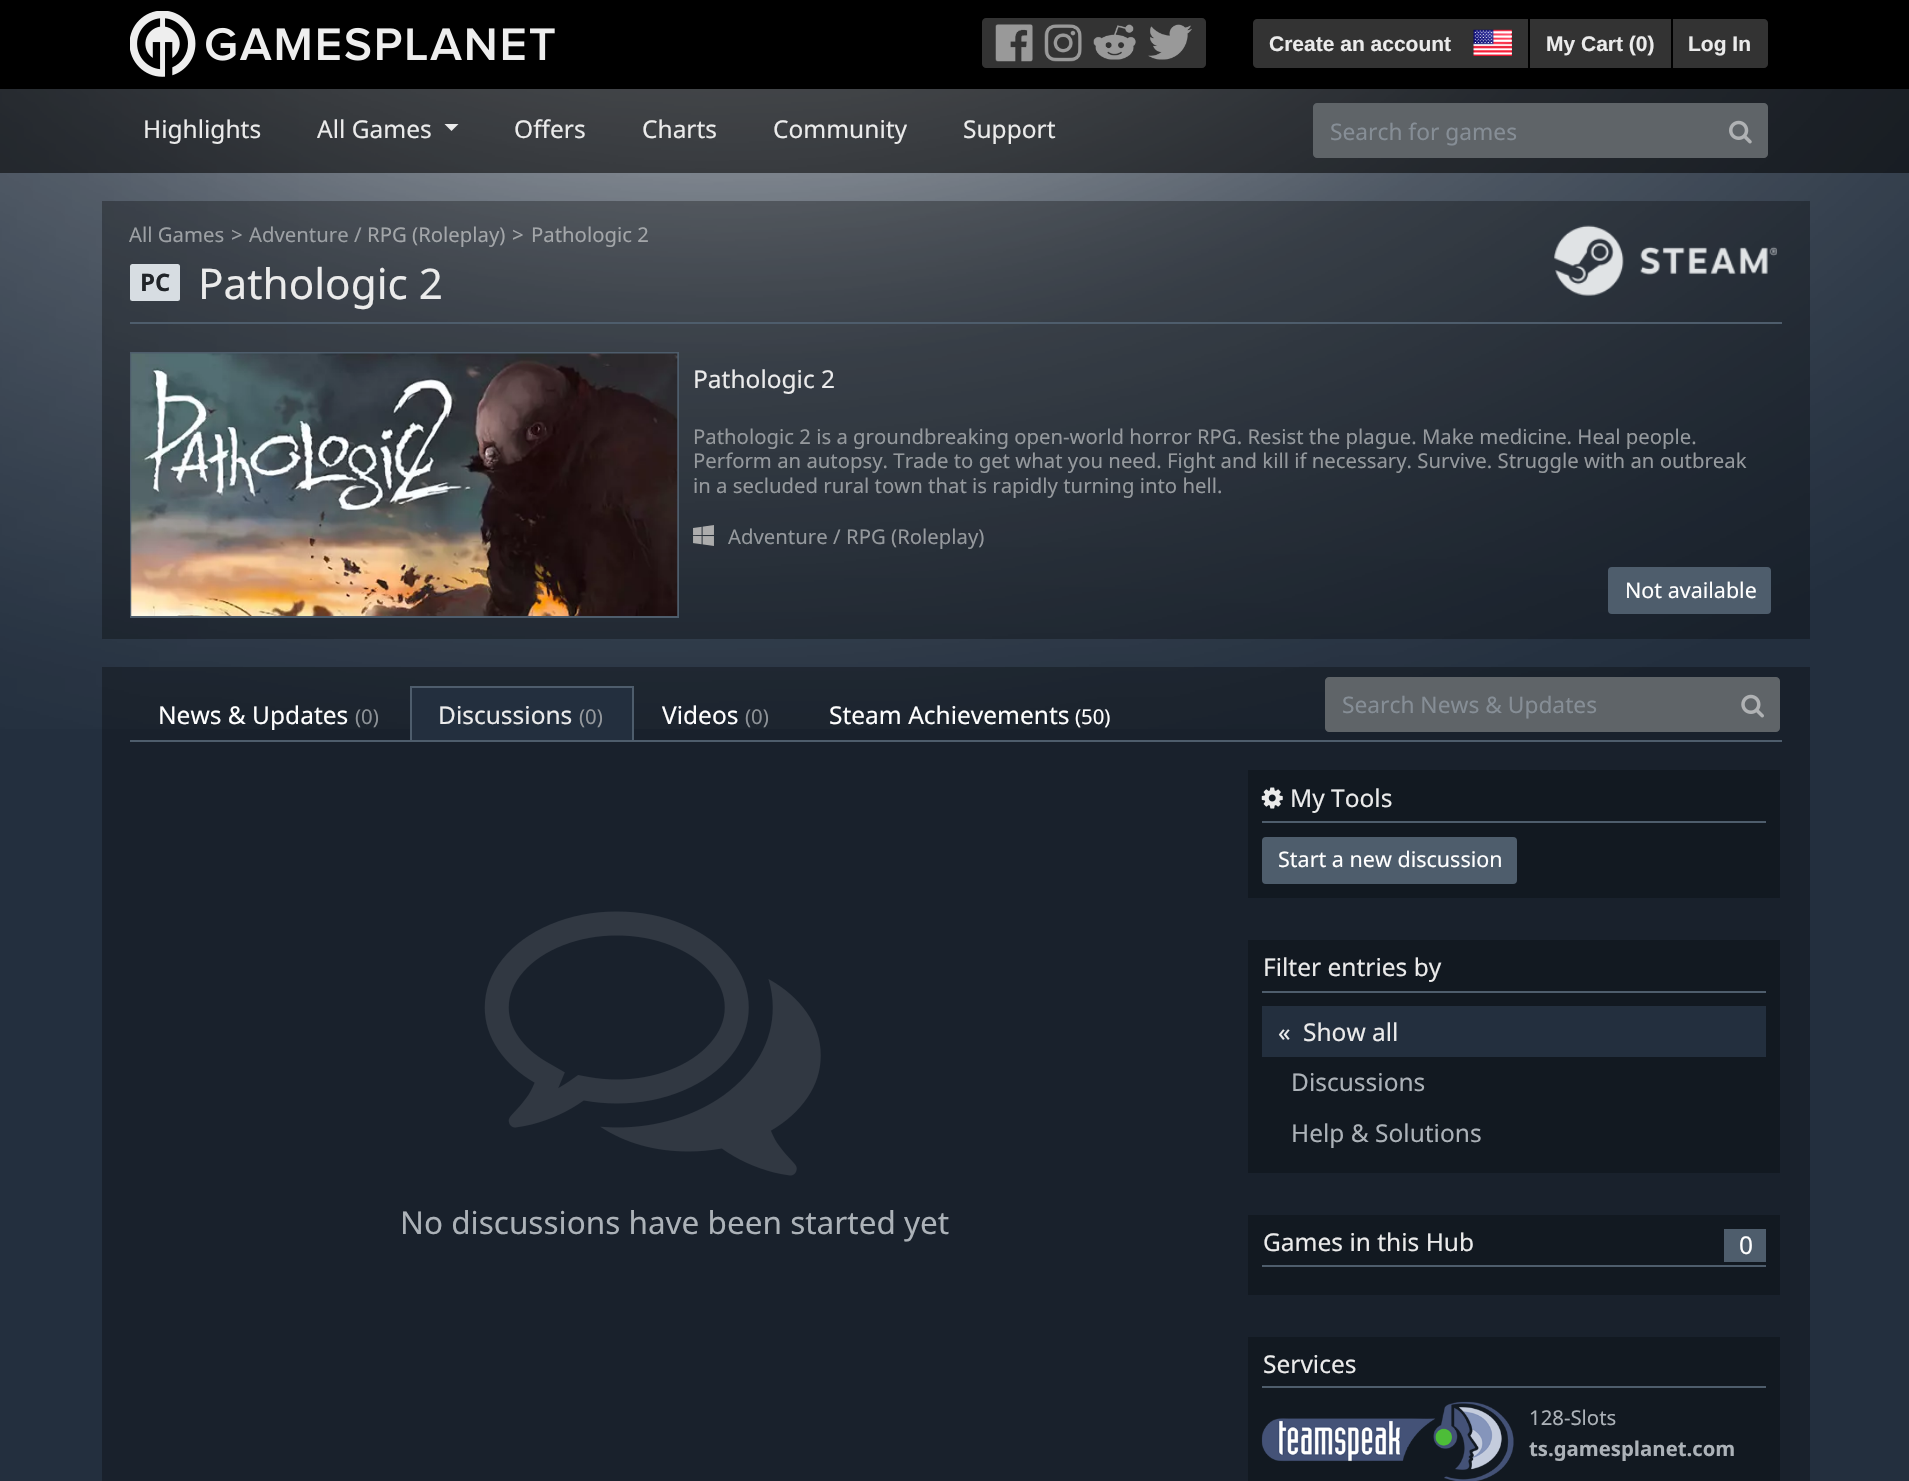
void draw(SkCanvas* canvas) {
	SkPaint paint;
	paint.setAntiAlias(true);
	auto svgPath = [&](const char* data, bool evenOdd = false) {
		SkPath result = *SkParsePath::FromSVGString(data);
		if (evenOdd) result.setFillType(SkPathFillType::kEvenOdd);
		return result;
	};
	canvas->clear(0xff232f3e);
	canvas->drawImageRect(SkImages::DeferredFromEncodedData(SkData::MakeFromFileName("img1.png")), SkRect::MakeXYWH(0, 89, 1909, 640), SkSamplingOptions());
	paint.setColor(0xff000000);
	canvas->drawRect(SkRect::MakeXYWH(0, 0, 1909, 89), paint);
	canvas->drawImageRect(SkImages::DeferredFromEncodedData(SkData::MakeFromFileName("img2.png")), SkRect::MakeXYWH(130, 11, 425, 66), SkSamplingOptions());
	paint.setColor(0xff333333);
	canvas->drawPath(svgPath("M986 18H1040V68H986C984 68 982 66 982 64V22C982 20 984 18 986 18Z"), paint);
	canvas->drawImageRect(SkImages::DeferredFromEncodedData(SkData::MakeFromFileName("img3.png")), SkRect::MakeXYWH(995, 24, 38, 38), SkSamplingOptions());
	canvas->drawRect(SkRect::MakeXYWH(1040, 18, 101, 50), paint);
	canvas->drawImageRect(SkImages::DeferredFromEncodedData(SkData::MakeFromFileName("img4.png")), SkRect::MakeXYWH(1044, 24, 38, 38), SkSamplingOptions());
	canvas->drawPath(svgPath("M1141 18H1202C1204 18 1206 20 1206 22V64C1206 66 1204 68 1202 68H1141Z"), paint);
	canvas->drawImageRect(SkImages::DeferredFromEncodedData(SkData::MakeFromFileName("img5.png")), SkRect::MakeXYWH(1148, 24, 44, 36), SkSamplingOptions());
	canvas->drawImageRect(SkImages::DeferredFromEncodedData(SkData::MakeFromFileName("img6.png")), SkRect::MakeXYWH(1093, 24, 43, 36), SkSamplingOptions());
	canvas->drawPath(svgPath("M1257 19H1467V68H1257C1255 68 1253 66 1253 64V23C1253 21 1255 19 1257 19Z"), paint);
	SkFont f1(fontMgr->matchFamilyStyle("Liberation Sans", SkFontStyle::Bold()), 21);
	f1.setSubpixel(true);
	paint.setColor(0xffebebeb);
	canvas->drawString("Create an account", 1269, 51, f1, paint);
	paint.setColor(0xff333333);
	canvas->drawRect(SkRect::MakeXYWH(1467, 19, 61, 49), paint);
	canvas->drawImageRect(SkImages::DeferredFromEncodedData(SkData::MakeFromFileName("img7.png")), SkRect::MakeXYWH(1473, 29, 39, 27), SkSamplingOptions());
	canvas->drawRect(SkRect::MakeXYWH(1530, 19, 141, 49), paint);
	paint.setColor(0xffebebeb);
	canvas->drawString("My Cart (0)", 1546, 51, f1, paint);
	paint.setColor(0xff333333);
	canvas->drawPath(svgPath("M1673 19H1764C1766 19 1768 21 1768 23V64C1768 66 1766 68 1764 68H1673Z"), paint);
	paint.setColor(0xffebebeb);
	canvas->drawString("Log In", 1688, 51, f1, paint);
	paint.setColor(0x8c000000);
	canvas->drawRect(SkRect::MakeXYWH(0, 89, 1909, 84), paint);
	SkFont f2(fontMgr->matchFamilyStyle("Noto Sans", SkFontStyle::Normal()), 24.5);
	f2.setSubpixel(true);
	paint.setColor(0xffebebeb);
	canvas->drawString("Highlights", 143, 138, f2, paint);
	canvas->drawString("All Games", 317, 138, f2, paint);
	canvas->drawPath(svgPath("M444.5 124H458.5L451.5 131Z"), paint);
	canvas->drawString("Offers", 514, 138, f2, paint);
	canvas->drawString("Charts", 642, 138, f2, paint);
	canvas->drawString("Community", 773, 138, f2, paint);
	canvas->drawString("Support", 963, 138, f2, paint);
	paint.setColor(0xff5f6468);
	canvas->drawPath(svgPath("M1317 104H1714V157H1317C1315.5 157 1314 155.5 1314 154V107C1314 105.5 1315.5 104 1317 104Z"), paint);
	paint.setStroke(true);
	paint.setStrokeWidth(2);
	canvas->drawPath(svgPath("M1317 104H1714V157H1317C1315.5 157 1314 155.5 1314 154V107C1314 105.5 1315.5 104 1317 104Z"), paint);
	SkFont f3(fontMgr->matchFamilyStyle("Noto Sans", SkFontStyle::Normal()), 22.75);
	f3.setSubpixel(true);
	paint.setStroke(false);
	paint.setColor(0xff868e96);
	canvas->drawString("Search for games", 1330, 140, f3, paint);
	paint.setColor(0xff5f6468);
	canvas->drawPath(svgPath("M1714 104H1764C1765.5 104 1767 105.5 1767 107V154C1767 155.5 1765.5 157 1764 157H1714Z"), paint);
	paint.setStroke(true);
	canvas->drawPath(svgPath("M1714 104H1764C1765.5 104 1767 105.5 1767 107V154C1767 155.5 1765.5 157 1764 157H1714Z"), paint);
	canvas->drawImageRect(SkImages::DeferredFromEncodedData(SkData::MakeFromFileName("img8.png")), SkRect::MakeXYWH(1729, 120, 23, 24), SkSamplingOptions());
	paint.setStroke(false);
	paint.setColor(0x4d000000);
	canvas->drawRect(SkRect::MakeXYWH(102, 201, 1708, 438), paint);
	SkFont f4(fontMgr->matchFamilyStyle("Noto Sans", SkFontStyle::Normal()), 20.33);
	f4.setSubpixel(true);
	paint.setColor(0xff9ca0a4);
	canvas->drawString("All Games", 129, 242, f4, paint);
	canvas->drawString(">", 231, 242, f4, paint);
	canvas->drawString("Adventure", 249, 242, f4, paint);
	canvas->drawString("/", 354, 242, f4, paint);
	paint.setColor(0xffa3a6a9);
	canvas->drawString("RPG (Roleplay)", 367, 242, f4, paint);
	canvas->drawString(">", 512, 242, f4, paint);
	canvas->drawString("Pathologic 2", 531, 242, f4, paint);
	paint.setColor(0xffd7dde2);
	canvas->drawRoundRect(SkRect::MakeXYWH(130, 264, 50, 37), 2.5, 2.5, paint);
	SkFont f5(fontMgr->matchFamilyStyle("Noto Sans", SkFontStyle::Bold()), 24);
	f5.setSubpixel(true);
	paint.setColor(0xff212529);
	canvas->drawString("PC", 140, 291, f5, paint);
	paint.setColor(0xff4e5d6c);
	canvas->drawRect(SkRect::MakeXYWH(130, 322, 1652, 2), paint);
	SkFont f6(fontMgr->matchFamilyStyle("Noto Sans", SkFontStyle::Normal()), 42.25);
	f6.setSubpixel(true);
	paint.setColor(0xffebebeb);
	canvas->drawString("Pathologic 2", 198, 299, f6, paint);
	canvas->drawImageRect(SkImages::DeferredFromEncodedData(SkData::MakeFromFileName("img9.png")), SkRect::MakeXYWH(1554, 225, 223, 71), SkSamplingOptions());
	paint.setStroke(true);
	paint.setColor(0xff4e5d6c);
	canvas->drawRect(SkRect::MakeXYWH(131, 353, 547, 264), paint);
	canvas->drawImageRect(SkImages::DeferredFromEncodedData(SkData::MakeFromFileName("img10.png")), SkRect::MakeXYWH(131, 353, 547, 263), SkSamplingOptions());
	paint.setStroke(false);
	paint.setColor(0xffebebeb);
	canvas->drawString("Pathologic 2", 693, 388, f2, paint);
	paint.setColor(0xff95999d);
	canvas->drawString("Pathologic 2 is a groundbreaking open-world horror RPG. Resist the plague. Make medicine. Heal people.", 693, 444, f4, paint);
	canvas->drawString("Perform an autopsy. Trade to get what you need. Fight and kill if necessary. Survive. Struggle with an outbreak", 693, 468, f4, paint);
	canvas->drawString("in a secluded rural town that is rapidly turning into hell.", 693, 493, f4, paint);
	canvas->drawImageRect(SkImages::DeferredFromEncodedData(SkData::MakeFromFileName("img11.png")), SkRect::MakeXYWH(693, 525, 21, 21), SkSamplingOptions());
	canvas->drawString("Adventure /", 728, 544, f4, paint);
	canvas->drawString("RPG (Roleplay)", 846, 544, f4, paint);
	paint.setColor(0xff4e5d6c);
	canvas->drawRoundRect(SkRect::MakeXYWH(1609, 568, 161, 45), 3, 3, paint);
	paint.setStroke(true);
	canvas->drawRoundRect(SkRect::MakeXYWH(1609, 568, 161, 45), 3, 3, paint);
	SkFont f7(fontMgr->matchFamilyStyle("Noto Sans", SkFontStyle::Normal()), 21.5);
	f7.setSubpixel(true);
	paint.setStroke(false);
	paint.setColor(0xffffffff);
	canvas->drawString("Not available", 1625, 598, f7, paint);
	paint.setColor(0x4d000000);
	canvas->drawRect(SkRect::MakeXYWH(102, 667, 1708, 814), paint);
	paint.setColor(0xff4e5d6c);
	canvas->drawRect(SkRect::MakeXYWH(130, 740, 1652, 2), paint);
	paint.setColor(0xffffffff);
	canvas->drawString("News & Updates", 158, 724, f2, paint);
	paint.setColor(0xff8d9297);
	canvas->drawString("(0)", 355, 724, f4, paint);
	paint.setColor(0xff232f3e);
	canvas->drawRect(SkRect::MakeXYWH(412, 688, 220, 52), paint);
	canvas->save();
	canvas->clipRect(SkRect::MakeXYWH(130, 686, 1652, 54));
	paint.setStroke(true);
	paint.setColor(0xff4e5d6c);
	canvas->drawRect(SkRect::MakeXYWH(411, 687, 222, 54), paint);
	canvas->restore();
	paint.setStroke(false);
	paint.setColor(0xffebebeb);
	canvas->drawString("Discussions", 438, 724, f2, paint);
	paint.setColor(0xff95999d);
	canvas->drawString("(0)", 579, 724, f4, paint);
	paint.setColor(0xffffffff);
	canvas->drawString("Videos", 662, 724, f2, paint);
	paint.setColor(0xff8d9297);
	canvas->drawString("(0)", 745, 724, f4, paint);
	paint.setColor(0xffffffff);
	canvas->drawString("Steam Achievements", 829, 724, f2, paint);
	canvas->drawString("(50)", 1075, 724, f4, paint);
	paint.setColor(0xff5f6468);
	canvas->drawPath(svgPath("M1329 678H1726V731H1329C1327.5 731 1326 729.5 1326 728V681C1326 679.5 1327.5 678 1329 678Z"), paint);
	paint.setStroke(true);
	canvas->drawPath(svgPath("M1329 678H1726V731H1329C1327.5 731 1326 729.5 1326 728V681C1326 679.5 1327.5 678 1329 678Z"), paint);
	paint.setStroke(false);
	paint.setColor(0xff868e96);
	canvas->drawString("Search News & Updates", 1342, 713, f3, paint);
	paint.setColor(0xff5f6468);
	canvas->drawPath(svgPath("M1727 678H1776C1777.5 678 1779 679.5 1779 681V728C1779 729.5 1777.5 731 1776 731H1727Z"), paint);
	paint.setStroke(true);
	canvas->drawPath(svgPath("M1727 678H1776C1777.5 678 1779 679.5 1779 681V728C1779 729.5 1777.5 731 1776 731H1727Z"), paint);
	canvas->drawImageRect(SkImages::DeferredFromEncodedData(SkData::MakeFromFileName("img12.png")), SkRect::MakeXYWH(1741, 694, 23, 24), SkSamplingOptions());
	canvas->drawImageRect(SkImages::DeferredFromEncodedData(SkData::MakeFromFileName("img13.png")), SkRect::MakeXYWH(484, 911, 337, 265), SkSamplingOptions());
	SkFont f8(fontMgr->matchFamilyStyle("Noto Sans", SkFontStyle::Normal()), 31.5);
	f8.setSubpixel(true);
	paint.setStroke(false);
	paint.setColor(0xffacb2b8);
	canvas->drawString("No discussions have been started yet", 400, 1234, f8, paint);
	paint.setColor(0xff121921);
	canvas->drawRect(SkRect::MakeXYWH(1248, 770, 532, 128), paint);
	paint.setColor(0xff4e5d6c);
	canvas->drawRect(SkRect::MakeXYWH(1262, 821, 504, 2), paint);
	canvas->drawImageRect(SkImages::DeferredFromEncodedData(SkData::MakeFromFileName("img14.png")), SkRect::MakeXYWH(1261, 787, 22, 22), SkSamplingOptions());
	paint.setColor(0xffebebeb);
	canvas->drawString("My Tools", 1290, 807, f2, paint);
	paint.setColor(0xff4e5d6c);
	canvas->drawRoundRect(SkRect::MakeXYWH(1263, 838, 253, 45), 3, 3, paint);
	paint.setStroke(true);
	canvas->drawRoundRect(SkRect::MakeXYWH(1263, 838, 253, 45), 3, 3, paint);
	paint.setStroke(false);
	paint.setColor(0xffffffff);
	canvas->drawString("Start a new discussion", 1278, 867, f7, paint);
	paint.setColor(0xff121921);
	canvas->drawRect(SkRect::MakeXYWH(1248, 940, 532, 233), paint);
	paint.setColor(0xff4e5d6c);
	canvas->drawRect(SkRect::MakeXYWH(1262, 991, 504, 2), paint);
	paint.setColor(0xffebebeb);
	canvas->drawString("Filter entries by", 1263, 976, f2, paint);
	paint.setColor(0xff232f3e);
	canvas->drawRect(SkRect::MakeXYWH(1262, 1006, 504, 51), paint);
	paint.setColor(0xffebebeb);
	canvas->drawString("«", 1278, 1041, f2, paint);
	canvas->drawString("Show all", 1303, 1041, f2, paint);
	paint.setColor(0xffacb2b8);
	canvas->drawString("Discussions", 1291, 1091, f2, paint);
	canvas->drawString("Help & Solutions", 1291, 1142, f2, paint);
	paint.setColor(0xff121921);
	canvas->drawRect(SkRect::MakeXYWH(1248, 1215, 532, 80), paint);
	paint.setColor(0xff4e5d6c);
	canvas->drawRect(SkRect::MakeXYWH(1262, 1265, 504, 2), paint);
	paint.setColor(0xffebebeb);
	canvas->drawString("Games in this Hub", 1263, 1251, f2, paint);
	paint.setColor(0xff4e5d6c);
	canvas->drawRect(SkRect::MakeXYWH(1724, 1229, 42, 33), paint);
	paint.setColor(0xffffffff);
	canvas->drawString("0", 1739, 1254, f2, paint);
	paint.setColor(0xff121921);
	canvas->drawRect(SkRect::MakeXYWH(1248, 1337, 532, 144), paint);
	paint.setColor(0xff4e5d6c);
	canvas->drawRect(SkRect::MakeXYWH(1262, 1386, 504, 2), paint);
	paint.setColor(0xffebebeb);
	canvas->drawString("Services", 1263, 1373, f2, paint);
	canvas->drawImageRect(SkImages::DeferredFromEncodedData(SkData::MakeFromFileName("img15.png")), SkRect::MakeXYWH(1261, 1401, 253, 80), SkSamplingOptions());
	paint.setColor(0xffacb2b8);
	canvas->drawString("128-Slots", 1529, 1425, f4, paint);
	SkFont f9(fontMgr->matchFamilyStyle("Noto Sans", SkFontStyle::Bold()), 20.33);
	f9.setSubpixel(true);
	canvas->drawString("ts.gamesplanet.com", 1529, 1456, f9, paint);
}
